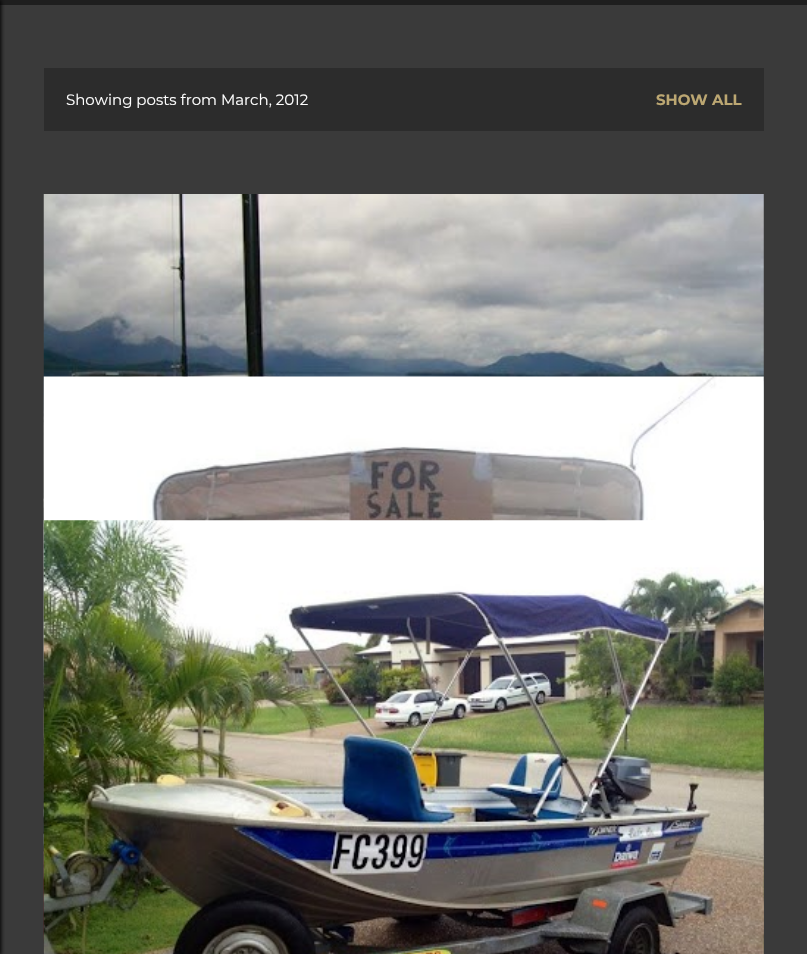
void draw(SkCanvas* canvas) {
	SkPaint paint;
	paint.setAntiAlias(true);
	canvas->clear(0xff3a3a3a);
	paint.setColor(0xff1e1e1e);
	canvas->drawRect(SkRect::MakeXYWH(0, 0, 807, 5), paint);
	paint.setColor(0xff000000);
	paint.setMaskFilter(SkMaskFilter::MakeBlur(kNormal_SkBlurStyle, 2));
	canvas->drawRect(SkRect::MakeXYWH(-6, 0, 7, 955), paint);
	paint.setMaskFilter(nullptr);
	paint.setColor(0xff2c2c2c);
	canvas->drawRect(SkRect::MakeXYWH(44, 68, 720, 63), paint);
	SkFont f1(fontMgr->matchFamilyStyle("Montserrat", SkFontStyle::Normal()), 15);
	f1.setSubpixel(true);
	paint.setColor(0xffffffff);
	canvas->drawString("Showing posts from March, 2012", 66, 105, f1, paint);
	SkFont f2(fontMgr->matchFamilyStyle("Montserrat", SkFontStyle::Bold()), 15);
	f2.setSubpixel(true);
	paint.setColor(0xffbca772);
	canvas->drawString("SHOW ALL", 656, 105, f2, paint);
	canvas->drawImageRect(SkImages::DeferredFromEncodedData(SkData::MakeFromFileName("img1.png")), SkRect::MakeXYWH(43, 194, 721, 407), SkSamplingOptions());
	canvas->drawImageRect(SkImages::DeferredFromEncodedData(SkData::MakeFromFileName("img2.png")), SkRect::MakeXYWH(43, 376, 721, 578), SkSamplingOptions());
	canvas->drawImageRect(SkImages::DeferredFromEncodedData(SkData::MakeFromFileName("img3.png")), SkRect::MakeXYWH(43, 520, 721, 434), SkSamplingOptions());
}
